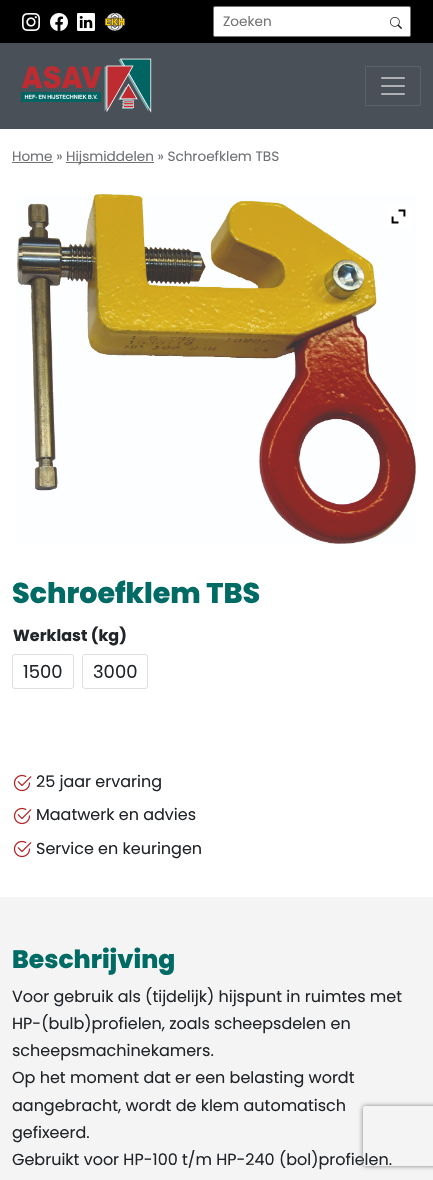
void draw(SkCanvas* canvas) {
	SkPaint paint;
	paint.setAntiAlias(true);
	auto svgPath = [&](const char* data, bool evenOdd = false) {
		SkPath result = *SkParsePath::FromSVGString(data);
		if (evenOdd) result.setFillType(SkPathFillType::kEvenOdd);
		return result;
	};
	canvas->clear(0xffffffff);
	paint.setColor(0xff000000);
	canvas->drawRect(SkRect::MakeXYWH(0, 0, 433, 43), paint);
	canvas->drawImageRect(SkImages::DeferredFromEncodedData(SkData::MakeFromFileName("img1.png")), SkRect::MakeXYWH(22, 13, 18, 18), SkSamplingOptions());
	canvas->drawImageRect(SkImages::DeferredFromEncodedData(SkData::MakeFromFileName("img2.png")), SkRect::MakeXYWH(50, 13, 18, 18), SkSamplingOptions());
	canvas->drawImageRect(SkImages::DeferredFromEncodedData(SkData::MakeFromFileName("img3.png")), SkRect::MakeXYWH(77, 13, 18, 18), SkSamplingOptions());
	canvas->drawImageRect(SkImages::DeferredFromEncodedData(SkData::MakeFromFileName("img4.png")), SkRect::MakeXYWH(105, 11, 20, 22), SkSamplingOptions());
	paint.setColor(0xffffffff);
	canvas->drawRoundRect(SkRect::MakeXYWH(213.5, 6.5, 197, 30), 1.5, 1.5, paint);
	paint.setStroke(true);
	paint.setStrokeWidth(1);
	paint.setColor(0xff767676);
	canvas->drawRoundRect(SkRect::MakeXYWH(213.5, 6.5, 197, 30), 1.5, 1.5, paint);
	SkFont f1(fontMgr->matchFamilyStyle("Poppins", SkFontStyle::Normal()), 13.6);
	f1.setSubpixel(true);
	paint.setStroke(false);
	paint.setColor(0xff757575);
	canvas->drawString("Zoeken", 223, 26, f1, paint);
	canvas->drawImageRect(SkImages::DeferredFromEncodedData(SkData::MakeFromFileName("img5.png")), SkRect::MakeXYWH(390, 17, 12, 12), SkSamplingOptions());
	paint.setColor(0xff495057);
	canvas->drawRect(SkRect::MakeXYWH(0, 43, 433, 86), paint);
	canvas->drawImageRect(SkImages::DeferredFromEncodedData(SkData::MakeFromFileName("img6.png")), SkRect::MakeXYWH(21, 58, 131, 55), SkSamplingOptions());
	paint.setStroke(true);
	paint.setColor(0xff5b6268);
	canvas->drawRect(SkRect::MakeXYWH(365.5, 66.5, 55, 39), paint);
	canvas->drawImageRect(SkImages::DeferredFromEncodedData(SkData::MakeFromFileName("img7.png")), SkRect::MakeXYWH(381, 77, 24, 18), SkSamplingOptions());
	paint.setStroke(false);
	paint.setColor(0xff6f7174);
	canvas->drawString("Home »", 12, 161, f1, paint);
	canvas->drawRect(SkRect::MakeXYWH(12, 162, 41, 1), paint);
	canvas->drawRect(SkRect::MakeXYWH(66, 162, 88, 1), paint);
	canvas->drawString("Hijsmiddelen » Schroefklem TBS", 66, 161, f1, paint);
	canvas->drawImageRect(SkImages::DeferredFromEncodedData(SkData::MakeFromFileName("img8.png")), SkRect::MakeXYWH(17, 194, 399, 350), SkSamplingOptions());
	paint.setColor(0xffffffff);
	canvas->drawRect(SkRect::MakeXYWH(386, 204, 25, 25), paint);
	canvas->drawImageRect(SkImages::DeferredFromEncodedData(SkData::MakeFromFileName("img9.png")), SkRect::MakeXYWH(391, 209, 15, 15), SkSamplingOptions());
	SkFont f2(fontMgr->matchFamilyStyle("Poppins", SkFontStyle(800, SkFontStyle::kNormal_Width, SkFontStyle::kUpright_Slant)), 28.5);
	f2.setSubpixel(true);
	paint.setColor(0xff006b65);
	canvas->drawString("Schroefklem TBS", 12, 603, f2, paint);
	SkFont f3(fontMgr->matchFamilyStyle("Poppins", SkFontStyle::Bold()), 16);
	f3.setSubpixel(true);
	paint.setColor(0xff212529);
	canvas->drawString("Werklast (kg)", 13, 641, f3, paint);
	paint.setStroke(true);
	paint.setColor(0xffdfdfdf);
	canvas->drawRoundRect(SkRect::MakeXYWH(12.5, 654.5, 61, 34), 2.5, 2.5, paint);
	SkFont f4(fontMgr->matchFamilyStyle("Poppins", SkFontStyle::Normal()), 18);
	f4.setSubpixel(true);
	paint.setStroke(false);
	paint.setColor(0xff212529);
	canvas->drawString("1500", 23, 678, f4, paint);
	paint.setStroke(true);
	paint.setColor(0xffdfdfdf);
	canvas->drawRoundRect(SkRect::MakeXYWH(82.5, 654.5, 65, 34), 2.5, 2.5, paint);
	paint.setStroke(false);
	paint.setColor(0xff212529);
	canvas->drawString("3000", 93, 678, f4, paint);
	canvas->drawImageRect(SkImages::DeferredFromEncodedData(SkData::MakeFromFileName("img10.png")), SkRect::MakeXYWH(13, 774, 19, 18), SkSamplingOptions());
	SkFont f5(fontMgr->matchFamilyStyle("Poppins", SkFontStyle::Normal()), 16);
	f5.setSubpixel(true);
	canvas->drawString("25 jaar ervaring", 36, 787, f5, paint);
	canvas->drawImageRect(SkImages::DeferredFromEncodedData(SkData::MakeFromFileName("img10.png")), SkRect::MakeXYWH(13, 807, 19, 18), SkSamplingOptions());
	canvas->drawString("Maatwerk en advies", 36, 820, f5, paint);
	canvas->drawImageRect(SkImages::DeferredFromEncodedData(SkData::MakeFromFileName("img10.png")), SkRect::MakeXYWH(13, 840, 19, 18), SkSamplingOptions());
	canvas->drawString("Service en keuringen", 36, 854, f5, paint);
	paint.setColor(0xfff4f4f4);
	canvas->drawRect(SkRect::MakeXYWH(0, 897, 433, 283), paint);
	SkFont f6(fontMgr->matchFamilyStyle("Poppins", SkFontStyle(800, SkFontStyle::kNormal_Width, SkFontStyle::kUpright_Slant)), 25);
	f6.setSubpixel(true);
	paint.setColor(0xff006b65);
	canvas->drawString("Beschrijving", 12, 968, f6, paint);
	paint.setColor(0xff212529);
	canvas->drawString("Voor gebruik als (tijdelijk) hijspunt in ruimtes met", 12, 1002, f5, paint);
	canvas->drawString("HP-(bulb)profielen, zoals scheepsdelen en", 12, 1029, f5, paint);
	canvas->drawString("scheepsmachinekamers.", 12, 1056, f5, paint);
	canvas->drawString("Op het moment dat er een belasting wordt", 12, 1083, f5, paint);
	canvas->drawString("aangebracht, wordt de klem automatisch", 12, 1111, f5, paint);
	canvas->drawString("gefixeerd.", 12, 1138, f5, paint);
	canvas->drawString("Gebruikt voor HP-100 t/m HP-240 (bol)profielen.", 12, 1165, f5, paint);
	canvas->save();
	canvas->clipPath(svgPath("M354 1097H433V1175H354ZM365 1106H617C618 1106 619 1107 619 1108V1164C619 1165 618 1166 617 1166H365C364 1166 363 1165 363 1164V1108C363 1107 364 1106 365 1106Z", true), true);
	paint.setColor(0xff808080);
	paint.setMaskFilter(SkMaskFilter::MakeBlur(kNormal_SkBlurStyle, 2.5));
	canvas->drawRoundRect(SkRect::MakeXYWH(363, 1106, 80, 60), 2, 2, paint);
	paint.setMaskFilter(nullptr);
	canvas->restore();
}
